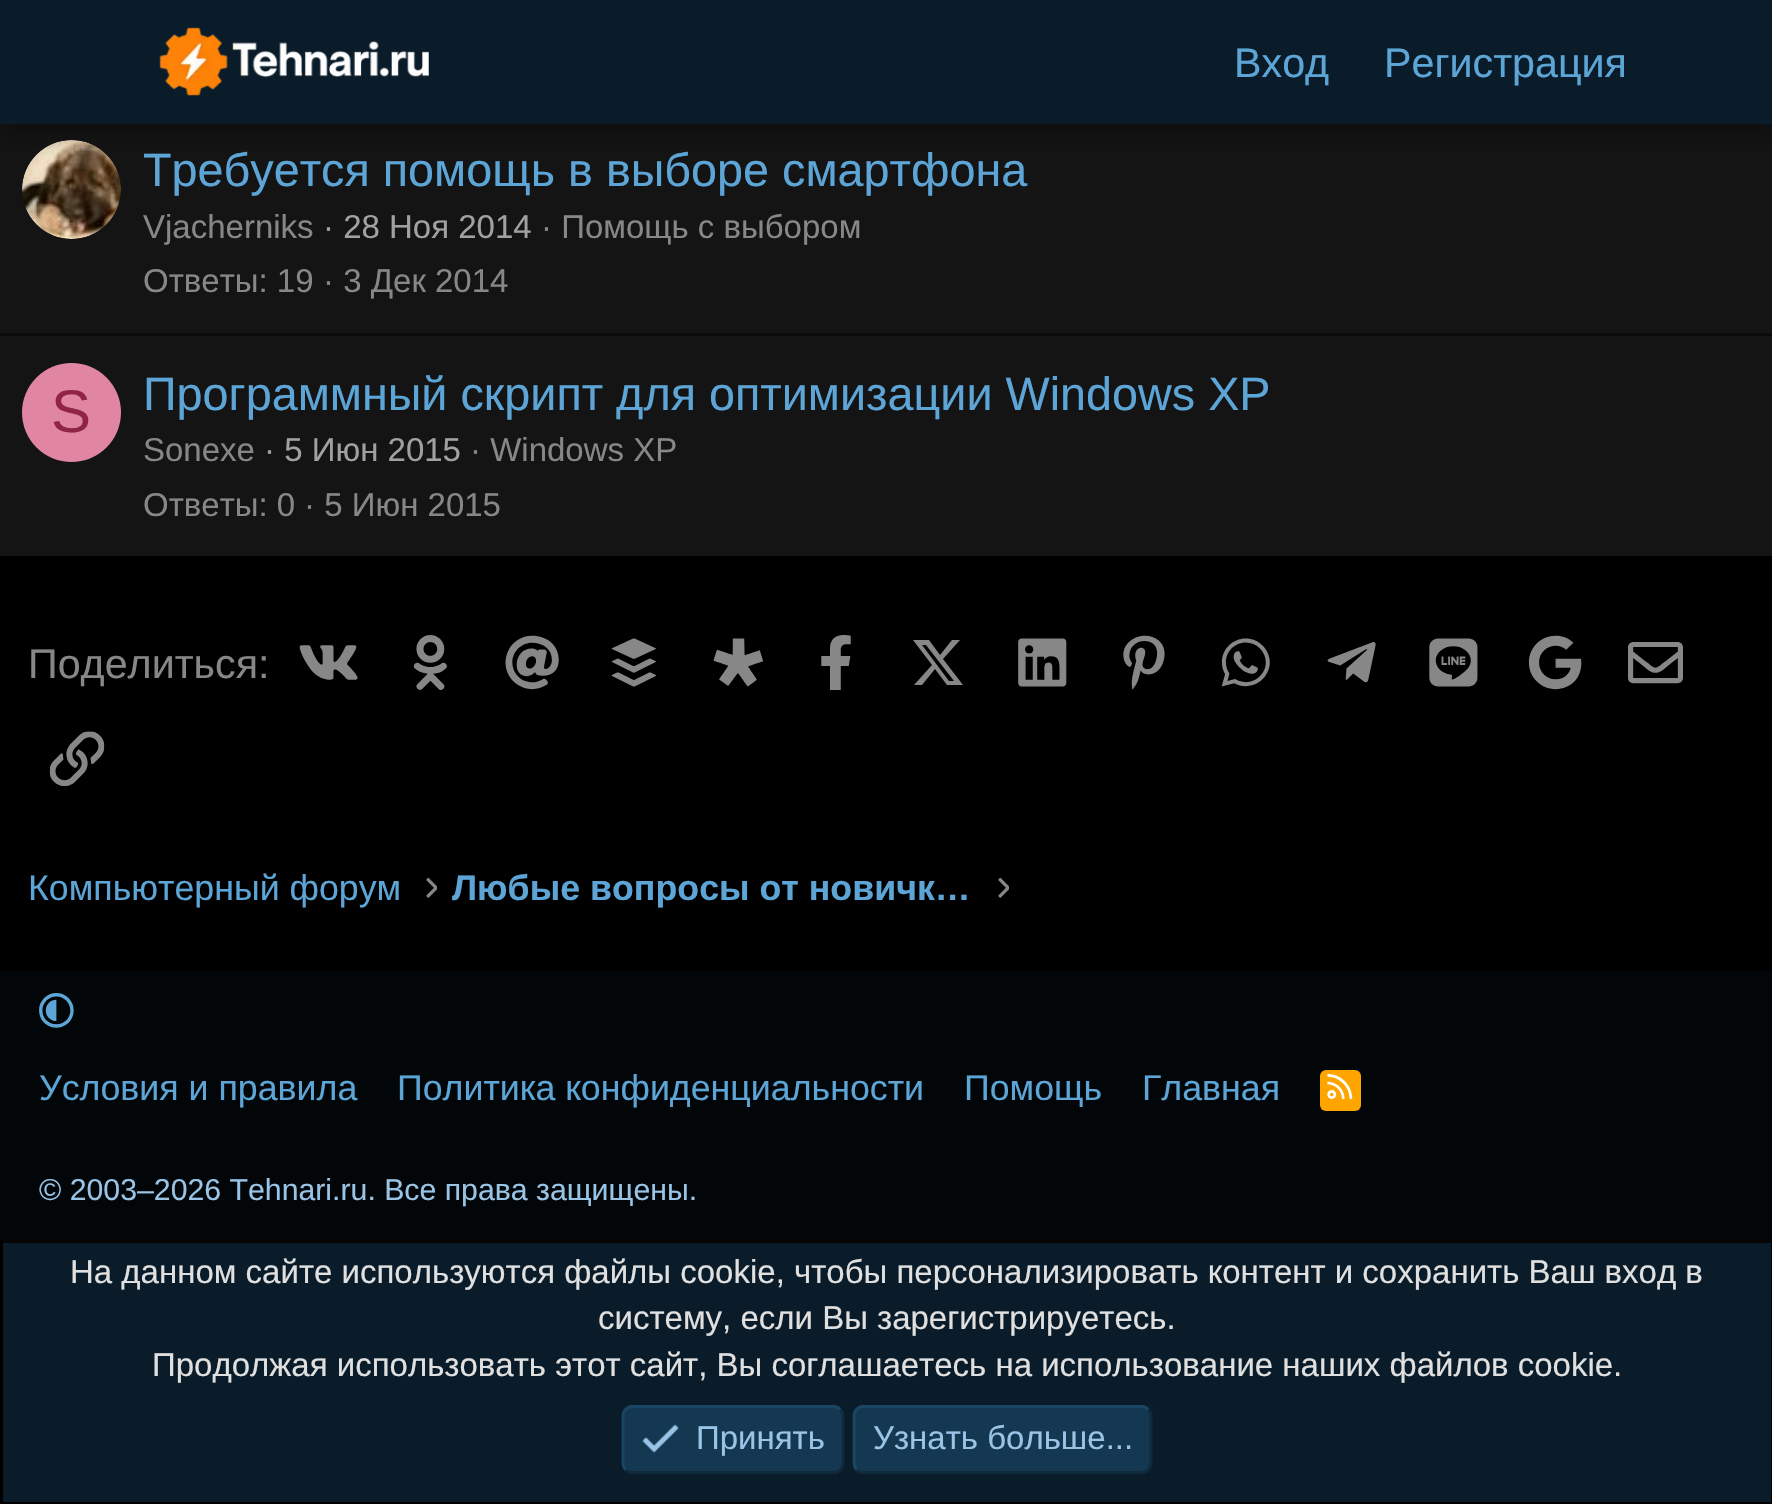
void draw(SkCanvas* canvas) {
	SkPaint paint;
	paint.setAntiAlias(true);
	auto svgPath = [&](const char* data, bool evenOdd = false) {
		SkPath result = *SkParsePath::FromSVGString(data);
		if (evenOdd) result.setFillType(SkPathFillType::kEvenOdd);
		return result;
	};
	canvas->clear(0xff000000);
	paint.setColor(0xff141414);
	canvas->drawRect(SkRect::MakeXYWH(0, 124, 1772, 432), paint);
	canvas->drawImageRect(SkImages::DeferredFromEncodedData(SkData::MakeFromFileName("img2.png")), SkRect::MakeXYWH(22, 140, 99, 99), SkSamplingOptions());
	paint.setColor(0x4d000000);
	paint.setMaskFilter(SkMaskFilter::MakeBlur(kNormal_SkBlurStyle, 11));
	canvas->drawRect(SkRect::MakeXYWH(-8, -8, 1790, 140), paint);
	paint.setMaskFilter(nullptr);
	paint.setColor(0xff0a1c29);
	canvas->drawRect(SkRect::MakeXYWH(0, 0, 1772, 124), paint);
	canvas->drawImageRect(SkImages::DeferredFromEncodedData(SkData::MakeFromFileName("img1.png")), SkRect::MakeXYWH(159, 27, 270, 69), SkSamplingOptions());
	SkFont f1(fontMgr->matchFamilyStyle("Liberation Sans", SkFontStyle::Normal()), 41.25);
	f1.setSubpixel(true);
	paint.setColor(0xff5ca5d6);
	canvas->drawString("Вход", 1234, 77, f1, paint);
	canvas->drawString("Регистрация", 1384, 77, f1, paint);
	SkFont f2(fontMgr->matchFamilyStyle("Liberation Sans", SkFontStyle::Normal()), 46.75);
	f2.setSubpixel(true);
	canvas->drawString("Требуется помощь в выборе смартфона", 143, 186, f2, paint);
	SkFont f3(fontMgr->matchFamilyStyle("Liberation Sans", SkFontStyle::Normal()), 33);
	f3.setSubpixel(true);
	paint.setColor(0xff878787);
	canvas->drawString("Vjacherniks", 143, 238, f3, paint);
	paint.setColor(0xffa1a1a1);
	canvas->drawString("· 28 Ноя 2014", 323, 238, f3, paint);
	paint.setColor(0xff878787);
	canvas->drawString("· Помощь с выбором", 541, 238, f3, paint);
	canvas->drawString("Ответы: 19", 143, 292, f3, paint);
	canvas->drawString("· 3 Дек 2014", 323, 292, f3, paint);
	paint.setColor(0xff0a0a0a);
	canvas->drawRect(SkRect::MakeXYWH(0, 333, 1772, 3), paint);
	paint.setColor(0xffe085a2);
	canvas->drawCircle(71.5, 412.5, 49.5, paint);
	SkFont f4(fontMgr->matchFamilyStyle("Liberation Sans", SkFontStyle::Normal()), 60);
	f4.setSubpixel(true);
	paint.setColor(0xff8f2446);
	canvas->drawString("S", 51, 432, f4, paint);
	paint.setColor(0xff5ca5d6);
	canvas->drawString("Программный скрипт для оптимизации Windows XP", 143, 410, f2, paint);
	paint.setColor(0xff878787);
	canvas->drawString("Sonexe", 143, 461, f3, paint);
	paint.setColor(0xffa1a1a1);
	canvas->drawString("· 5 Июн 2015", 264, 461, f3, paint);
	paint.setColor(0xff878787);
	canvas->drawString("· Windows XP", 470, 461, f3, paint);
	canvas->drawString("Ответы: 0", 143, 516, f3, paint);
	canvas->drawString("· 5 Июн 2015", 304, 516, f3, paint);
	canvas->drawImageRect(SkImages::DeferredFromEncodedData(SkData::MakeFromFileName("img3.png")), SkRect::MakeXYWH(299, 645, 59, 35), SkSamplingOptions());
	canvas->drawImageRect(SkImages::DeferredFromEncodedData(SkData::MakeFromFileName("img4.png")), SkRect::MakeXYWH(413, 635, 34, 55), SkSamplingOptions());
	canvas->drawImageRect(SkImages::DeferredFromEncodedData(SkData::MakeFromFileName("img5.png")), SkRect::MakeXYWH(505, 635, 54, 55), SkSamplingOptions());
	canvas->drawImageRect(SkImages::DeferredFromEncodedData(SkData::MakeFromFileName("img6.png")), SkRect::MakeXYWH(611, 638, 45, 49), SkSamplingOptions());
	canvas->drawImageRect(SkImages::DeferredFromEncodedData(SkData::MakeFromFileName("img7.png")), SkRect::MakeXYWH(713, 638, 51, 49), SkSamplingOptions());
	canvas->drawImageRect(SkImages::DeferredFromEncodedData(SkData::MakeFromFileName("img8.png")), SkRect::MakeXYWH(821, 635, 30, 55), SkSamplingOptions());
	canvas->drawPath(svgPath("M952 640H960L943 659L963 685H947L935 669L922 685H914L932 665L913 640H929L940 655ZM949 681H954L926 645H922Z"), paint);
	canvas->drawImageRect(SkImages::DeferredFromEncodedData(SkData::MakeFromFileName("img9.png")), SkRect::MakeXYWH(1018, 638, 49, 49), SkSamplingOptions());
	canvas->drawImageRect(SkImages::DeferredFromEncodedData(SkData::MakeFromFileName("img10.png")), SkRect::MakeXYWH(1123, 635, 42, 55), SkSamplingOptions());
	canvas->drawImageRect(SkImages::DeferredFromEncodedData(SkData::MakeFromFileName("img11.png")), SkRect::MakeXYWH(1221, 638, 49, 49), SkSamplingOptions());
	canvas->drawImageRect(SkImages::DeferredFromEncodedData(SkData::MakeFromFileName("img12.png")), SkRect::MakeXYWH(1327, 642, 49, 41), SkSamplingOptions());
	canvas->drawImageRect(SkImages::DeferredFromEncodedData(SkData::MakeFromFileName("img13.png")), SkRect::MakeXYWH(1429, 638, 49, 49), SkSamplingOptions());
	canvas->drawImageRect(SkImages::DeferredFromEncodedData(SkData::MakeFromFileName("img14.png")), SkRect::MakeXYWH(1528, 635, 54, 55), SkSamplingOptions());
	canvas->drawImageRect(SkImages::DeferredFromEncodedData(SkData::MakeFromFileName("img15.png")), SkRect::MakeXYWH(1628, 642, 55, 42), SkSamplingOptions());
	canvas->drawImageRect(SkImages::DeferredFromEncodedData(SkData::MakeFromFileName("img16.png")), SkRect::MakeXYWH(49, 731, 56, 55), SkSamplingOptions());
	canvas->drawString("Поделиться:", 28, 678, f1, paint);
	SkFont f5(fontMgr->matchFamilyStyle("Liberation Sans", SkFontStyle::Normal()), 35.75);
	f5.setSubpixel(true);
	paint.setColor(0xff5ca5d6);
	canvas->drawString("Компьютерный форум", 28, 900, f5, paint);
	canvas->drawImageRect(SkImages::DeferredFromEncodedData(SkData::MakeFromFileName("img17.png")), SkRect::MakeXYWH(426, 877, 11, 21), SkSamplingOptions());
	SkFont f6(fontMgr->matchFamilyStyle("Liberation Sans", SkFontStyle::Bold()), 35.75);
	f6.setSubpixel(true);
	canvas->drawString("Любые вопросы от новичк…", 452, 900, f6, paint);
	canvas->drawImageRect(SkImages::DeferredFromEncodedData(SkData::MakeFromFileName("img17.png")), SkRect::MakeXYWH(998, 877, 11, 21), SkSamplingOptions());
	paint.setColor(0xff020608);
	canvas->drawRect(SkRect::MakeXYWH(0, 971, 1772, 269), paint);
	canvas->drawImageRect(SkImages::DeferredFromEncodedData(SkData::MakeFromFileName("img18.png")), SkRect::MakeXYWH(39, 993, 35, 35), SkSamplingOptions());
	paint.setColor(0xff5ca5d6);
	canvas->drawString("Условия и правила", 39, 1100, f5, paint);
	canvas->drawString("Политика конфиденциальности", 397, 1100, f5, paint);
	canvas->drawString("Помощь", 964, 1100, f5, paint);
	canvas->drawString("Главная", 1142, 1100, f5, paint);
	paint.setColor(0xffffa500);
	canvas->drawRoundRect(SkRect::MakeXYWH(1320, 1070, 41, 41), 6, 6, paint);
	canvas->drawImageRect(SkImages::DeferredFromEncodedData(SkData::MakeFromFileName("img19.png")), SkRect::MakeXYWH(1327, 1074, 26, 25), SkSamplingOptions());
	SkFont f7(fontMgr->matchFamilyStyle("Liberation Sans", SkFontStyle::Normal()), 30.25);
	f7.setSubpixel(true);
	paint.setColor(0xff99c4e6);
	canvas->drawString("© 2003–2026 Tehnari.ru. Все права защищены.", 39, 1200, f7, paint);
	paint.setColor(0xff0a1c29);
	canvas->drawRect(SkRect::MakeXYWH(3, 1243, 1768, 259), paint);
	paint.setColor(0xff050505);
	canvas->drawRect(SkRect::MakeXYWH(0, 1240, 1772, 3), paint);
	paint.setColor(0xff000000);
	canvas->drawRect(SkRect::MakeXYWH(1771, 1240, 1, 3), paint);
	canvas->drawRect(SkRect::MakeXYWH(0, 1240, 3, 3), paint);
	paint.setColor(0xffe0e0e0);
	canvas->drawString("На данном сайте используются файлы cookie, чтобы персонализировать контент и сохранить Ваш вход в", 70, 1283, f3, paint);
	canvas->drawString("систему, если Вы зарегистрируетесь.", 598, 1329, f3, paint);
	canvas->drawString("Продолжая использовать этот сайт, Вы соглашаетесь на использование наших файлов cookie.", 152, 1376, f3, paint);
	paint.setColor(0xff143852);
	canvas->drawRoundRect(SkRect::MakeXYWH(622, 1405, 222, 69), 11, 11, paint);
	paint.setStroke(true);
	paint.setStrokeWidth(2.8);
	paint.setColor(0xff0f2a3d);
	canvas->drawPath(svgPath("M840 1409.5C842 1411 843 1413.5 843 1416V1463C843 1465.5 842 1468 840 1470C838.5 1471.5 836 1472.5 833 1472.5H632.5C630 1472.5 627.5 1471.5 625.5 1470"), paint);
	paint.setColor(0xff1a4666);
	canvas->drawPath(svgPath("M625.5 1470C624 1468 623 1465.5 623 1463V1416C623 1413.5 624 1411 625.5 1409.5C627.5 1407.5 630 1406.5 632.5 1406.5H833C836 1406.5 838.5 1407.5 840 1409.5"), paint);
	canvas->drawImageRect(SkImages::DeferredFromEncodedData(SkData::MakeFromFileName("img20.png")), SkRect::MakeXYWH(642, 1424, 37, 29), SkSamplingOptions());
	paint.setStroke(false);
	paint.setColor(0xff99c4e6);
	canvas->drawString("Принять", 696, 1449, f3, paint);
	paint.setColor(0xff143852);
	canvas->drawRoundRect(SkRect::MakeXYWH(853, 1405, 299, 69), 11, 11, paint);
	paint.setStroke(true);
	paint.setColor(0xff0f2a3d);
	canvas->drawPath(svgPath("M1148 1409.5C1150 1411 1151 1413.5 1151 1416V1463C1151 1465.5 1150 1468 1148 1470C1146.5 1471.5 1144 1472.5 1141 1472.5H863.5C861 1472.5 858.5 1471.5 856.5 1470"), paint);
	paint.setColor(0xff1a4666);
	canvas->drawPath(svgPath("M856.5 1470C855 1468 854 1465.5 854 1463V1416C854 1413.5 855 1411 856.5 1409.5C858.5 1407.5 861 1406.5 863.5 1406.5H1141C1144 1406.5 1146.5 1407.5 1148 1409.5"), paint);
	paint.setStroke(false);
	paint.setColor(0xff99c4e6);
	canvas->drawString("Узнать больше...", 873, 1449, f3, paint);
}
